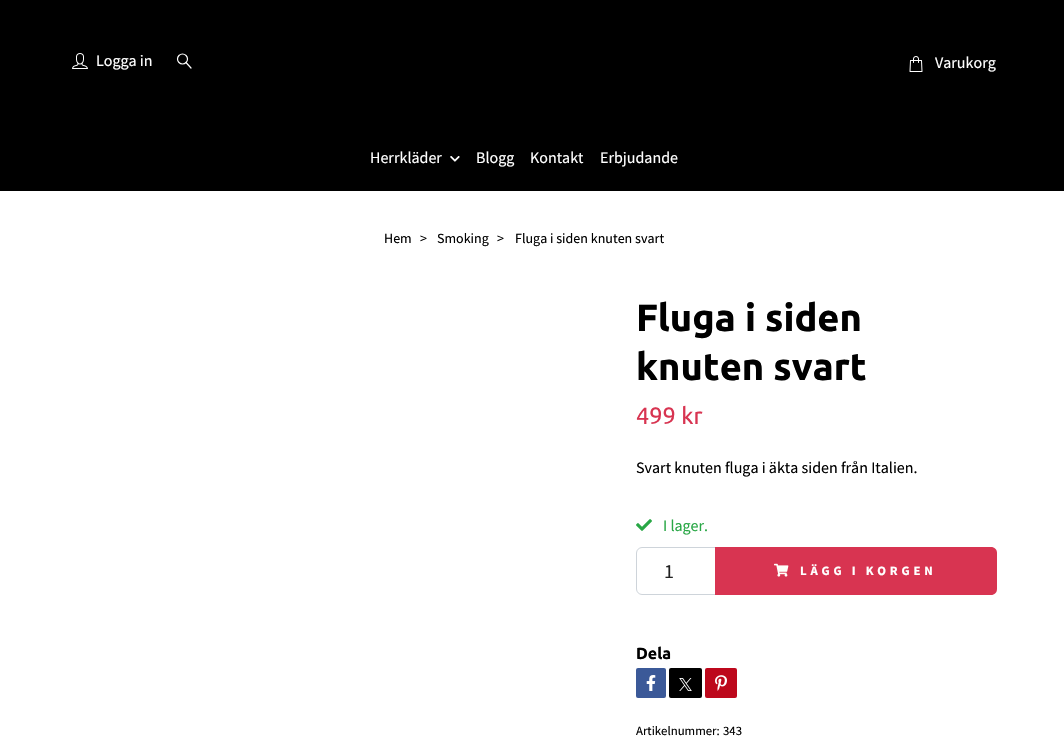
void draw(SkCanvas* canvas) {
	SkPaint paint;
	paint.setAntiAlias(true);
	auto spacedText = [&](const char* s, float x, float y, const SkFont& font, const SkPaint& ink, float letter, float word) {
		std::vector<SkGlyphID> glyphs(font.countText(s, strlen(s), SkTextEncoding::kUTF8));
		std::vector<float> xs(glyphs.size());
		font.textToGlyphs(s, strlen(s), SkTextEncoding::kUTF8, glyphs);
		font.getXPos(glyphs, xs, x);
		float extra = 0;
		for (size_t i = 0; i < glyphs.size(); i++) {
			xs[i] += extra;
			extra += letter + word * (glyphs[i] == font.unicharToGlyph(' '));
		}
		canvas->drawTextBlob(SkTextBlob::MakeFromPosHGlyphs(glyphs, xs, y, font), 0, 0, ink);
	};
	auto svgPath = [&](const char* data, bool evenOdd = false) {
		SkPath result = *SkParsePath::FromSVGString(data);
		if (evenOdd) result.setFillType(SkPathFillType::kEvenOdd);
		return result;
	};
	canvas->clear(0xffffffff);
	paint.setColor(0xff000000);
	canvas->drawRect(SkRect::MakeXYWH(0, 0, 1064, 191), paint);
	canvas->drawImageRect(SkImages::DeferredFromEncodedData(SkData::MakeFromFileName("img1.png")), SkRect::MakeXYWH(72, 53, 16, 16), SkSamplingOptions());
	SkFont f1(fontMgr->matchFamilyStyle("Source Sans Pro", SkFontStyle::Normal()), 16);
	f1.setSubpixel(true);
	paint.setColor(0xffffffff);
	canvas->drawString("Logga in", 96, 66, f1, paint);
	paint.setStroke(true);
	paint.setStrokeWidth(1.2);
	paint.setStrokeCap(SkPaint::kRound_Cap);
	paint.setStrokeJoin(SkPaint::kRound_Join);
	canvas->drawPath(svgPath("M186 62.5L191 68"), paint);
	paint.setStrokeCap(SkPaint::kButt_Cap);
	paint.setStrokeJoin(SkPaint::kMiter_Join);
	canvas->drawCircle(182.5, 59, 5, paint);
	canvas->drawImageRect(SkImages::DeferredFromEncodedData(SkData::MakeFromFileName("img2.png")), SkRect::MakeXYWH(909, 56, 14, 16), SkSamplingOptions());
	paint.setStroke(false);
	canvas->drawString("Varukorg", 935, 68, f1, paint);
	canvas->drawString("Herrkläder", 370, 163, f1, paint);
	canvas->drawImageRect(SkImages::DeferredFromEncodedData(SkData::MakeFromFileName("img3.png")), SkRect::MakeXYWH(450, 156, 10, 6), SkSamplingOptions());
	canvas->drawString("Blogg", 476, 163, f1, paint);
	canvas->drawString("Kontakt", 530, 163, f1, paint);
	canvas->drawString("Erbjudande", 600, 163, f1, paint);
	SkFont f2(fontMgr->matchFamilyStyle("Source Sans Pro", SkFontStyle::Normal()), 14);
	f2.setSubpixel(true);
	paint.setColor(0xff000000);
	canvas->drawString("Hem", 384, 243, f2, paint);
	canvas->drawString(">", 420, 243, f2, paint);
	canvas->drawString("Smoking", 437, 243, f2, paint);
	canvas->drawString(">", 497, 243, f2, paint);
	canvas->drawString("Fluga i siden knuten svart", 515, 243, f2, paint);
	SkFont f3(fontMgr->matchFamilyStyle("Ubuntu", SkFontStyle::Bold()), 38);
	f3.setSubpixel(true);
	canvas->drawString("Fluga i siden", 636, 331, f3, paint);
	canvas->drawString("knuten svart", 636, 380, f3, paint);
	SkFont f4(fontMgr->matchFamilyStyle("Ubuntu", SkFontStyle::Normal()), 23.5);
	f4.setSubpixel(true);
	paint.setColor(0xffd83451);
	canvas->drawString("499 kr", 636, 424, f4, paint);
	paint.setColor(0xff000000);
	canvas->drawString("Svart knuten fluga i äkta siden från Italien.", 636, 473, f1, paint);
	canvas->drawImageRect(SkImages::DeferredFromEncodedData(SkData::MakeFromFileName("img4.png")), SkRect::MakeXYWH(636, 519, 16, 12), SkSamplingOptions());
	paint.setColor(0xff28a745);
	canvas->drawString("I lager.", 663, 531, f1, paint);
	paint.setStroke(true);
	paint.setStrokeWidth(1);
	paint.setColor(0xffced4da);
	canvas->drawPath(svgPath("M642 547.5H715.5V594.5H642C639 594.5 636.5 592 636.5 589V553C636.5 550 639 547.5 642 547.5Z"), paint);
	SkFont f5(fontMgr->matchFamilyStyle("Source Sans Pro", SkFontStyle::Normal()), 20);
	f5.setSubpixel(true);
	paint.setStroke(false);
	paint.setColor(0xff222222);
	canvas->drawString("1", 664, 578, f5, paint);
	paint.setColor(0xffd83451);
	canvas->drawPath(svgPath("M715 547H991C994.5 547 997 549.5 997 553V589C997 592.5 994.5 595 991 595H715Z"), paint);
	canvas->drawImageRect(SkImages::DeferredFromEncodedData(SkData::MakeFromFileName("img5.png")), SkRect::MakeXYWH(774, 563, 15, 14), SkSamplingOptions());
	SkFont f6(fontMgr->matchFamilyStyle("Source Sans Pro", SkFontStyle::Bold()), 12.75);
	f6.setSubpixel(true);
	paint.setColor(0xffffffff);
	spacedText("LÄGG I KORGEN", 800, 575, f6, paint, 3.8, 0);
	SkFont f7(fontMgr->matchFamilyStyle("Ubuntu", SkFontStyle::Bold()), 16);
	f7.setSubpixel(true);
	paint.setColor(0xff000000);
	canvas->drawString("Dela", 636, 659, f7, paint);
	paint.setColor(0xff3b5998);
	canvas->drawRoundRect(SkRect::MakeXYWH(636, 668, 30, 30), 2, 2, paint);
	canvas->drawImageRect(SkImages::DeferredFromEncodedData(SkData::MakeFromFileName("img6.png")), SkRect::MakeXYWH(646, 675, 10, 16), SkSamplingOptions());
	paint.setColor(0xff000000);
	canvas->drawRoundRect(SkRect::MakeXYWH(669, 668, 33, 30), 2, 2, paint);
	paint.setColor(0xffbd081c);
	canvas->drawRoundRect(SkRect::MakeXYWH(705, 668, 32, 30), 2, 2, paint);
	canvas->drawImageRect(SkImages::DeferredFromEncodedData(SkData::MakeFromFileName("img7.png")), SkRect::MakeXYWH(715, 675, 12, 16), SkSamplingOptions());
	canvas->drawImageRect(SkImages::DeferredFromEncodedData(SkData::MakeFromFileName("img8.png")), SkRect::MakeXYWH(679, 678, 13, 13), SkSamplingOptions());
	SkFont f8(fontMgr->matchFamilyStyle("Source Sans Pro", SkFontStyle::Normal()), 12.75);
	f8.setSubpixel(true);
	paint.setColor(0xff000000);
	canvas->drawString("Artikelnummer:", 636, 735, f8, paint);
	canvas->drawString("343", 723, 735, f8, paint);
}
